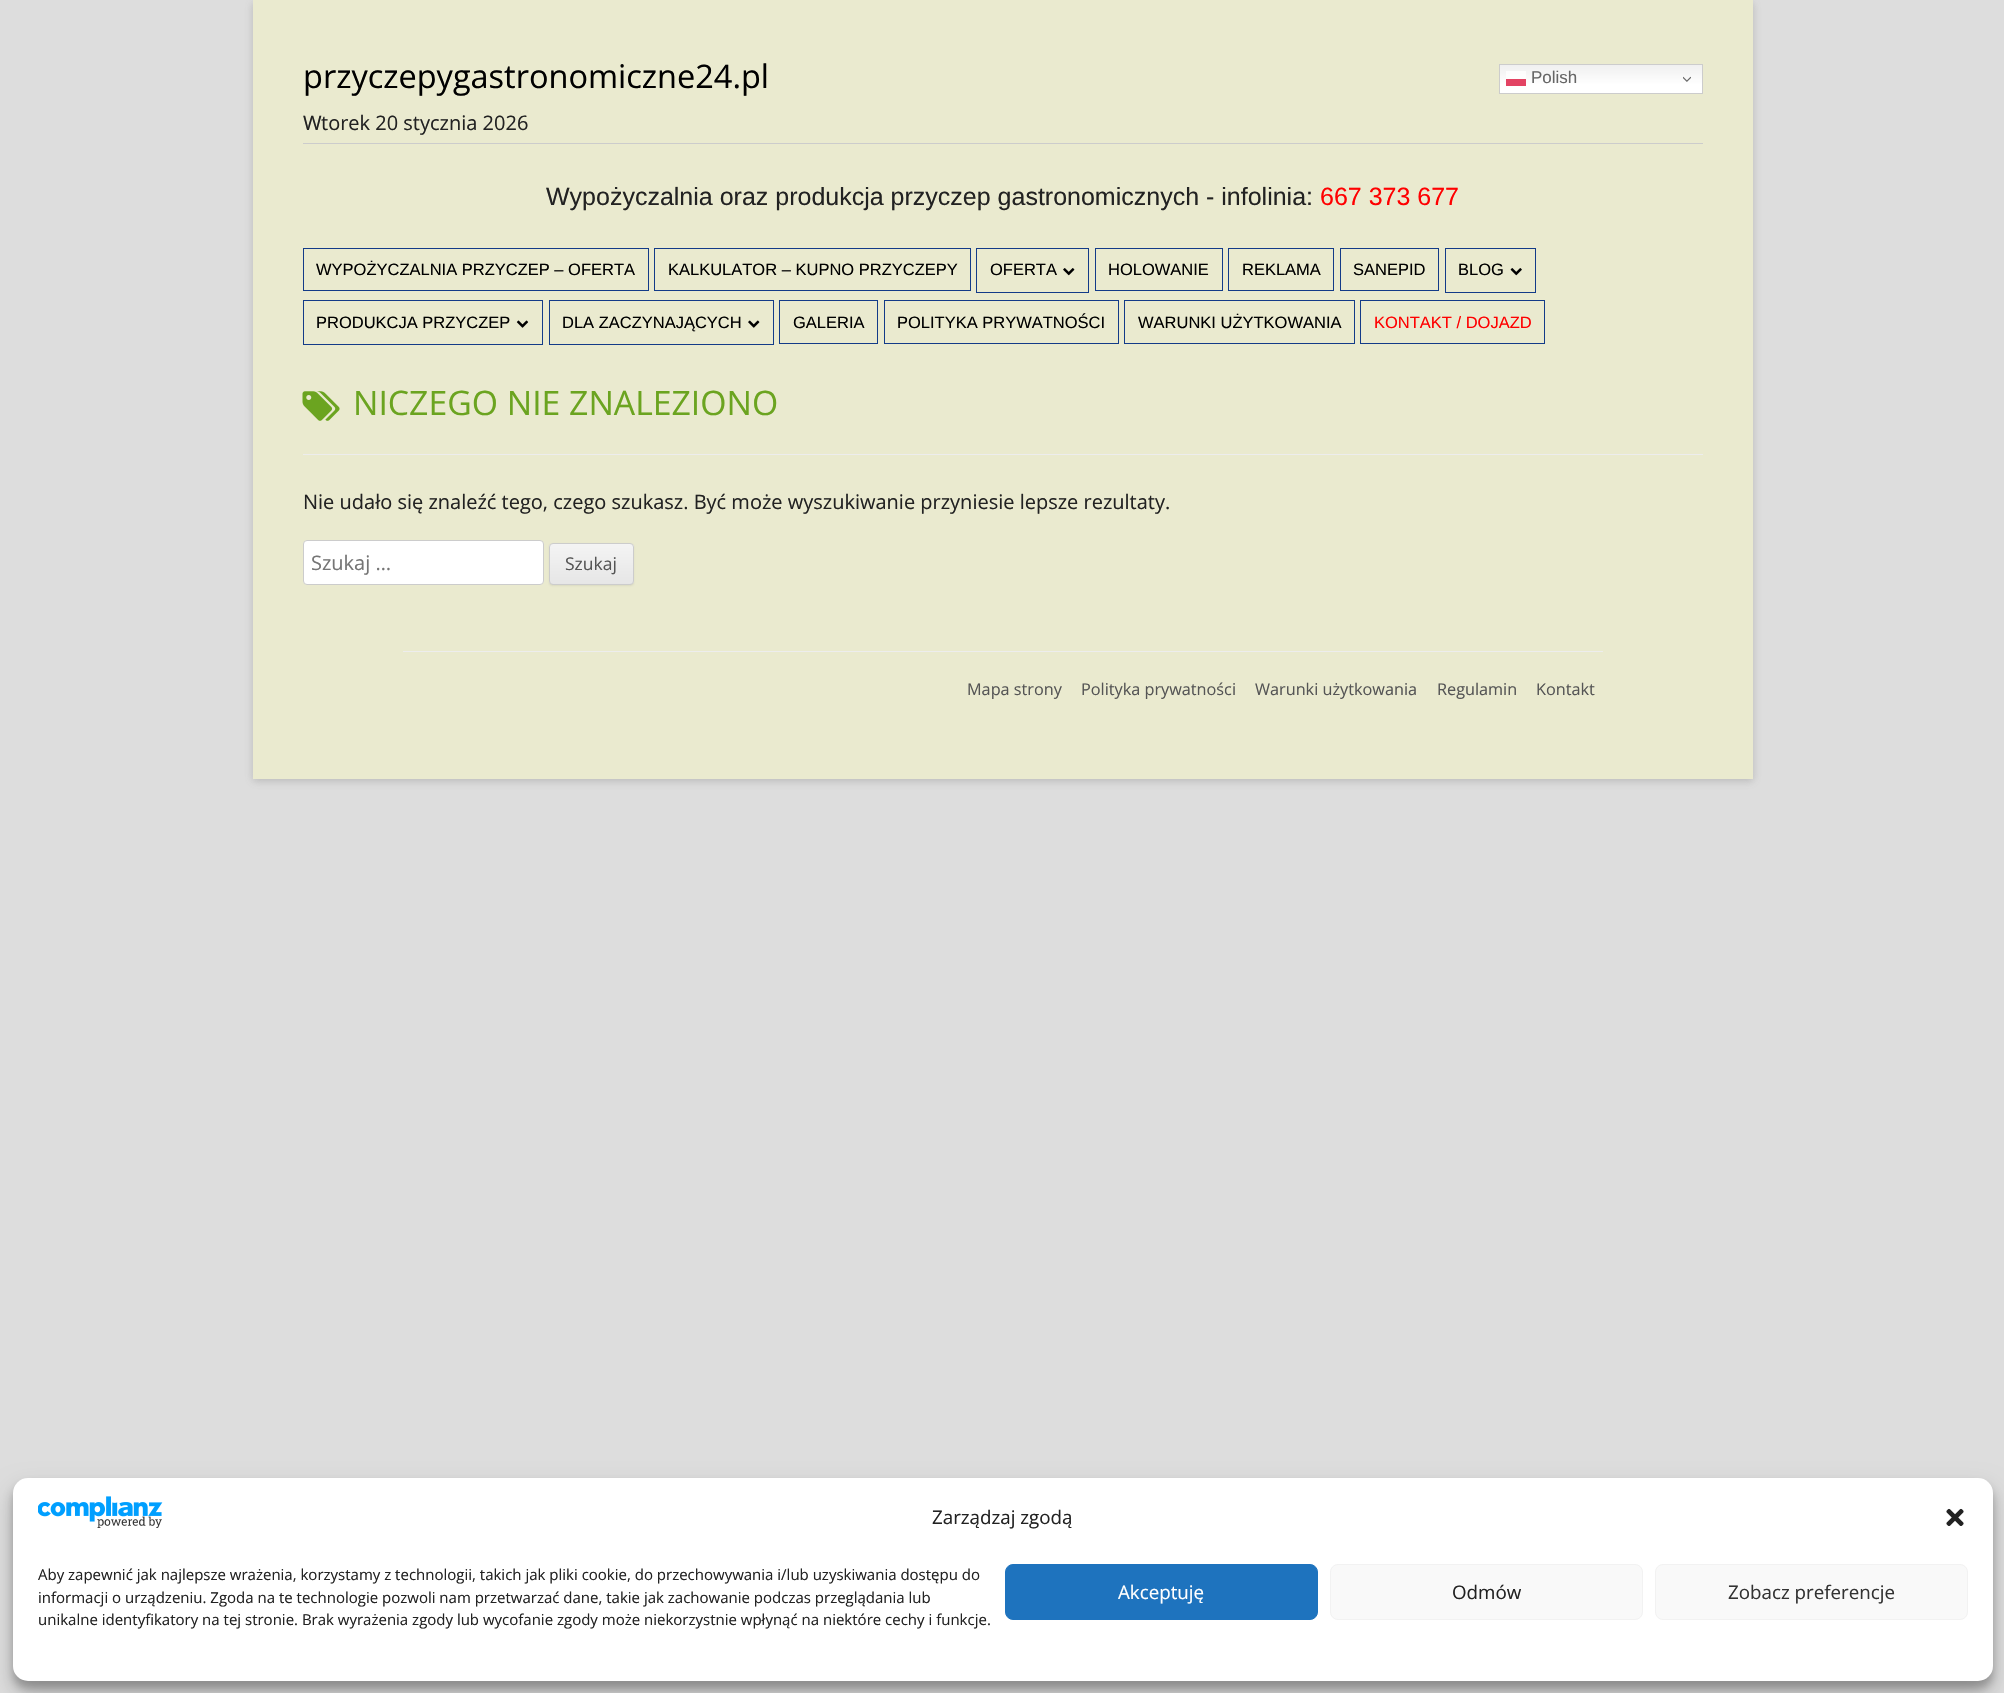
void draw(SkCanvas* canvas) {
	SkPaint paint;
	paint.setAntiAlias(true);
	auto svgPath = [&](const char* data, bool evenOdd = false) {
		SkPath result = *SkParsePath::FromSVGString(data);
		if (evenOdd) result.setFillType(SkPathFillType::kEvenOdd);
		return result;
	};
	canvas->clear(0xffdddddd);
	paint.setColor(0x4d646464);
	paint.setMaskFilter(SkMaskFilter::MakeBlur(kNormal_SkBlurStyle, 4));
	canvas->drawRect(SkRect::MakeXYWH(253, 3, 1500, 778), paint);
	paint.setMaskFilter(nullptr);
	paint.setColor(0xffeaeacf);
	canvas->drawRect(SkRect::MakeXYWH(253, 0, 1500, 779), paint);
	SkFont f1(fontMgr->matchFamilyStyle("Open Sans", SkFontStyle::Normal()), 32.5);
	f1.setSubpixel(true);
	paint.setColor(0xff000000);
	canvas->drawString("przyczepygastronomiczne24.pl", 303, 88, f1, paint);
	SkFont f2(fontMgr->matchFamilyStyle("Noto Sans", SkFontStyle::Normal()), 20);
	f2.setSubpixel(true);
	paint.setColor(0xff222222);
	canvas->drawString("W", 303, 130, f2, paint);
	SkFont f3(fontMgr->matchFamilyStyle("Open Sans", SkFontStyle::Normal()), 20);
	f3.setSubpixel(true);
	canvas->drawString("torek 20 stycznia 2026", 321, 130, f3, paint);
	{
		const SkColor colors[] = {0xffefefef, 0xffffffff};
		const float stops[] = {0, 0.7};
		const SkPoint ends[] = {{1601, 64}, {1601, 94}};
		paint.setShader(SkGradientShader::MakeLinear(ends, colors, stops, 2, SkTileMode::kClamp));
		paint.setAlpha(255);
	}
	canvas->drawRect(SkRect::MakeXYWH(1500, 65, 202, 28), paint);
	{
		const SkColor colors[] = {0xfffcfcfc, 0xffffffff};
		const float stops[] = {0, 0.7};
		const SkPoint ends[] = {{1601, 64}, {1601, 94}};
		paint.setShader(SkGradientShader::MakeLinear(ends, colors, stops, 2, SkTileMode::kClamp));
		paint.setAlpha(255);
	}
	canvas->drawRect(SkRect::MakeXYWH(1506, 71, 20, 8), paint);
	paint.setStroke(true);
	paint.setStrokeWidth(1);
	paint.setShader(nullptr);
	paint.setColor(0xffcccccc);
	canvas->drawRect(SkRect::MakeXYWH(1499.5, 64.5, 203, 29), paint);
	paint.setStroke(false);
	paint.setColor(0xffe34363);
	canvas->drawRect(SkRect::MakeXYWH(1506, 79, 20, 7), paint);
	SkFont f4(fontMgr->matchFamilyStyle("Liberation Sans", SkFontStyle::Normal()), 17);
	f4.setSubpixel(true);
	paint.setColor(0xff666666);
	canvas->drawString("Polish", 1531, 83, f4, paint);
	canvas->drawImageRect(SkImages::DeferredFromEncodedData(SkData::MakeFromFileName("img1.png")), SkRect::MakeXYWH(1683, 76, 8, 6), SkSamplingOptions());
	paint.setColor(0xffcccccc);
	canvas->drawRect(SkRect::MakeXYWH(303, 143, 1400, 1), paint);
	SkFont f5(fontMgr->matchFamilyStyle("Liberation Sans", SkFontStyle::Normal()), 25);
	f5.setSubpixel(true);
	paint.setColor(0xff222222);
	canvas->drawString("Wypożyczalnia oraz produkcja przyczep gastronomicznych - infolinia:", 546, 205, f5, paint);
	paint.setColor(0xffff0000);
	canvas->drawString("667 373 677", 1320, 205, f5, paint);
	paint.setStroke(true);
	paint.setColor(0xff133b88);
	canvas->drawRect(SkRect::MakeXYWH(303.5, 248.5, 345, 42), paint);
	SkFont f6(fontMgr->matchFamilyStyle("Liberation Sans", SkFontStyle::Normal()), 16.5);
	f6.setSubpixel(true);
	paint.setStroke(false);
	paint.setColor(0xff000000);
	canvas->drawString("WYPOŻYCZALNIA PRZYCZEP – OFERTA", 316, 275, f6, paint);
	paint.setStroke(true);
	paint.setColor(0xff133b88);
	canvas->drawRect(SkRect::MakeXYWH(654.5, 248.5, 316, 42), paint);
	paint.setStroke(false);
	paint.setColor(0xff000000);
	canvas->drawString("KALKULATOR – KUPNO PRZYCZEPY", 668, 275, f6, paint);
	paint.setStroke(true);
	paint.setColor(0xff133b88);
	canvas->drawRect(SkRect::MakeXYWH(976.5, 248.5, 112, 44), paint);
	paint.setStroke(false);
	paint.setColor(0xff000000);
	canvas->drawString("OFERTA", 990, 275, f6, paint);
	canvas->drawImageRect(SkImages::DeferredFromEncodedData(SkData::MakeFromFileName("img2.png")), SkRect::MakeXYWH(1063, 268, 12, 8), SkSamplingOptions());
	paint.setStroke(true);
	paint.setColor(0xff133b88);
	canvas->drawRect(SkRect::MakeXYWH(1095.5, 248.5, 127, 42), paint);
	paint.setStroke(false);
	paint.setColor(0xff000000);
	canvas->drawString("HOLOWANIE", 1108, 275, f6, paint);
	paint.setStroke(true);
	paint.setColor(0xff133b88);
	canvas->drawRect(SkRect::MakeXYWH(1228.5, 248.5, 105, 42), paint);
	paint.setStroke(false);
	paint.setColor(0xff000000);
	canvas->drawString("REKLAMA", 1242, 275, f6, paint);
	paint.setStroke(true);
	paint.setColor(0xff133b88);
	canvas->drawRect(SkRect::MakeXYWH(1340.5, 248.5, 98, 42), paint);
	paint.setStroke(false);
	paint.setColor(0xff000000);
	canvas->drawString("SANEPID", 1353, 275, f6, paint);
	paint.setStroke(true);
	paint.setColor(0xff133b88);
	canvas->drawRect(SkRect::MakeXYWH(1445.5, 248.5, 90, 44), paint);
	paint.setStroke(false);
	paint.setColor(0xff000000);
	canvas->drawString("BLOG", 1458, 275, f6, paint);
	canvas->drawImageRect(SkImages::DeferredFromEncodedData(SkData::MakeFromFileName("img3.png")), SkRect::MakeXYWH(1510, 268, 12, 8), SkSamplingOptions());
	paint.setStroke(true);
	paint.setColor(0xff133b88);
	canvas->drawRect(SkRect::MakeXYWH(303.5, 300.5, 239, 44), paint);
	paint.setStroke(false);
	paint.setColor(0xff000000);
	canvas->drawString("PRODUKCJA PRZYCZEP", 316, 328, f6, paint);
	canvas->drawImageRect(SkImages::DeferredFromEncodedData(SkData::MakeFromFileName("img4.png")), SkRect::MakeXYWH(516, 320, 13, 8), SkSamplingOptions());
	paint.setStroke(true);
	paint.setColor(0xff133b88);
	canvas->drawRect(SkRect::MakeXYWH(549.5, 300.5, 224, 44), paint);
	paint.setStroke(false);
	paint.setColor(0xff000000);
	canvas->drawString("DLA ZACZYNAJĄCYCH", 562, 328, f6, paint);
	canvas->drawImageRect(SkImages::DeferredFromEncodedData(SkData::MakeFromFileName("img5.png")), SkRect::MakeXYWH(748, 320, 12, 8), SkSamplingOptions());
	paint.setStroke(true);
	paint.setColor(0xff133b88);
	canvas->drawRect(SkRect::MakeXYWH(779.5, 300.5, 98, 43), paint);
	paint.setStroke(false);
	paint.setColor(0xff000000);
	canvas->drawString("GALERIA", 793, 328, f6, paint);
	paint.setStroke(true);
	paint.setColor(0xff133b88);
	canvas->drawRect(SkRect::MakeXYWH(884.5, 300.5, 234, 43), paint);
	paint.setStroke(false);
	paint.setColor(0xff000000);
	canvas->drawString("POLITYKA PRYWATNOŚCI", 897, 328, f6, paint);
	paint.setStroke(true);
	paint.setColor(0xff133b88);
	canvas->drawRect(SkRect::MakeXYWH(1124.5, 300.5, 230, 43), paint);
	paint.setStroke(false);
	paint.setColor(0xff000000);
	canvas->drawString("WARUNKI UŻYTKOWANIA", 1138, 328, f6, paint);
	paint.setStroke(true);
	paint.setColor(0xff133b88);
	canvas->drawRect(SkRect::MakeXYWH(1360.5, 300.5, 184, 43), paint);
	paint.setStroke(false);
	paint.setColor(0xffff0000);
	canvas->drawString("KONTAKT / DOJAZD", 1374, 328, f6, paint);
	paint.setColor(0xffededed);
	canvas->drawRect(SkRect::MakeXYWH(303, 454, 1400, 1), paint);
	canvas->drawImageRect(SkImages::DeferredFromEncodedData(SkData::MakeFromFileName("img6.png")), SkRect::MakeXYWH(302, 391, 38, 30), SkSamplingOptions());
	SkFont f7(fontMgr->matchFamilyStyle("Open Sans", SkFontStyle::Normal()), 33.75);
	f7.setSubpixel(true);
	paint.setColor(0xff6ba420);
	canvas->drawString("NICZEGO NIE ZNALEZIONO", 353, 415, f7, paint);
	paint.setColor(0xff222222);
	canvas->drawString("Nie udało się znaleźć tego, czego szukasz. Być może wyszukiwanie przyniesie lepsze rezultaty.", 303, 509, f3, paint);
	paint.setColor(0xffffffff);
	canvas->drawRoundRect(SkRect::MakeXYWH(303.5, 540.5, 240, 44), 3.5, 3.5, paint);
	paint.setStroke(true);
	paint.setColor(0xffcccccc);
	canvas->drawRoundRect(SkRect::MakeXYWH(303.5, 540.5, 240, 44), 3.5, 3.5, paint);
	paint.setStroke(false);
	paint.setColor(0xff757575);
	canvas->drawString("Szukaj …", 311, 570, f3, paint);
	paint.setColor(0x1a404040);
	paint.setMaskFilter(SkMaskFilter::MakeBlur(kNormal_SkBlurStyle, 1));
	canvas->drawRoundRect(SkRect::MakeXYWH(549, 544, 85, 42), 4, 4, paint);
	paint.setMaskFilter(nullptr);
	canvas->save();
	canvas->clipPath(svgPath("M553 543H630C632 543 634 545 634 547V581C634 583 632 585 630 585H553C551 585 549 583 549 581V547C549 545 551 543 553 543Z"), true);
	{
		const SkColor colors[] = {0xfff4f4f4, 0xffe6e6e6};
		const float stops[] = {0, 1};
		const SkPoint ends[] = {{591, 544}, {591, 584}};
		paint.setShader(SkGradientShader::MakeLinear(ends, colors, stops, 2, SkTileMode::kClamp));
		paint.setAlpha(255);
	}
	canvas->drawRect(SkRect::MakeXYWH(549, 544, 85, 40), paint);
	canvas->restore();
	paint.setStroke(true);
	paint.setShader(nullptr);
	paint.setColor(0xffcccccc);
	canvas->drawRoundRect(SkRect::MakeXYWH(549.5, 543.5, 84, 41), 3.5, 3.5, paint);
	SkFont f8(fontMgr->matchFamilyStyle("Open Sans", SkFontStyle::Normal()), 17.5);
	f8.setSubpixel(true);
	paint.setStroke(false);
	paint.setColor(0xff555555);
	canvas->drawString("Szukaj", 565, 570, f8, paint);
	paint.setColor(0xffededed);
	canvas->drawRect(SkRect::MakeXYWH(403, 651, 1200, 1), paint);
	SkFont f9(fontMgr->matchFamilyStyle("Open Sans", SkFontStyle::Normal()), 16.25);
	f9.setSubpixel(true);
	paint.setColor(0xff555555);
	canvas->drawString("Mapa strony", 967, 695, f9, paint);
	canvas->drawString("Polityka prywatności", 1081, 695, f9, paint);
	canvas->drawString("Warunki użytkowania", 1255, 695, f9, paint);
	canvas->drawString("Regulamin", 1437, 695, f9, paint);
	canvas->drawString("Kontakt", 1536, 695, f9, paint);
	paint.setColor(0x3b000000);
	paint.setMaskFilter(SkMaskFilter::MakeBlur(kNormal_SkBlurStyle, 4));
	canvas->drawRoundRect(SkRect::MakeXYWH(13, 1485, 1980, 204), 15, 15, paint);
	paint.setMaskFilter(nullptr);
	paint.setColor(0x30000000);
	paint.setMaskFilter(SkMaskFilter::MakeBlur(kNormal_SkBlurStyle, 12.5));
	canvas->drawRoundRect(SkRect::MakeXYWH(13, 1490, 1980, 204), 15, 15, paint);
	paint.setMaskFilter(nullptr);
	paint.setColor(0xffffffff);
	canvas->drawRoundRect(SkRect::MakeXYWH(13, 1478, 1980, 203), 15, 15, paint);
	canvas->drawImageRect(SkImages::DeferredFromEncodedData(SkData::MakeFromFileName("img7.png")), SkRect::MakeXYWH(38, 1496, 125, 32), SkSamplingOptions());
	SkFont f10(fontMgr->matchFamilyStyle("Open Sans", SkFontStyle::Normal()), 18.75);
	f10.setSubpixel(true);
	paint.setColor(0xff222222);
	canvas->drawString("Zarządzaj zgodą", 932, 1524, f10, paint);
	canvas->drawImageRect(SkImages::DeferredFromEncodedData(SkData::MakeFromFileName("img8.png")), SkRect::MakeXYWH(1946, 1508, 18, 18), SkSamplingOptions());
	SkFont f11(fontMgr->matchFamilyStyle("Open Sans", SkFontStyle::Normal()), 15);
	f11.setSubpixel(true);
	canvas->drawString("Aby zapewnić jak najlepsze wrażenia, korzystamy z technologii, takich jak pliki cookie, do przechowywania i/lub uzyskiwania dostępu do", 38, 1580, f11, paint);
	canvas->drawString("informacji o urządzeniu. Zgoda na te technologie pozwoli nam przetwarzać dane, takie jak zachowanie podczas przeglądania lub", 38, 1603, f11, paint);
	canvas->drawString("unikalne identyfikatory na tej stronie. Brak wyrażenia zgody lub wycofanie zgody może niekorzystnie wpłynąć na niektóre cechy i funkcje.", 38, 1625, f11, paint);
	paint.setColor(0xff1e73be);
	canvas->drawRoundRect(SkRect::MakeXYWH(1005.5, 1564.5, 312, 55), 7.5, 7.5, paint);
	paint.setStroke(true);
	canvas->drawRoundRect(SkRect::MakeXYWH(1005.5, 1564.5, 312, 55), 7.5, 7.5, paint);
	paint.setStroke(false);
	paint.setColor(0xffffffff);
	canvas->drawString("Akceptuję", 1118, 1599, f10, paint);
	paint.setColor(0xfff9f9f9);
	canvas->drawRoundRect(SkRect::MakeXYWH(1330.5, 1564.5, 312, 55), 7.5, 7.5, paint);
	paint.setStroke(true);
	paint.setColor(0xfff2f2f2);
	canvas->drawRoundRect(SkRect::MakeXYWH(1330.5, 1564.5, 312, 55), 7.5, 7.5, paint);
	paint.setStroke(false);
	paint.setColor(0xff222222);
	canvas->drawString("Odmów", 1452, 1599, f10, paint);
	paint.setColor(0xfff9f9f9);
	canvas->drawRoundRect(SkRect::MakeXYWH(1655.5, 1564.5, 312, 55), 7.5, 7.5, paint);
	paint.setStroke(true);
	paint.setColor(0xfff2f2f2);
	canvas->drawRoundRect(SkRect::MakeXYWH(1655.5, 1564.5, 312, 55), 7.5, 7.5, paint);
	paint.setStroke(false);
	paint.setColor(0xff333333);
	canvas->drawString("Zobacz preferencje", 1728, 1599, f10, paint);
}
